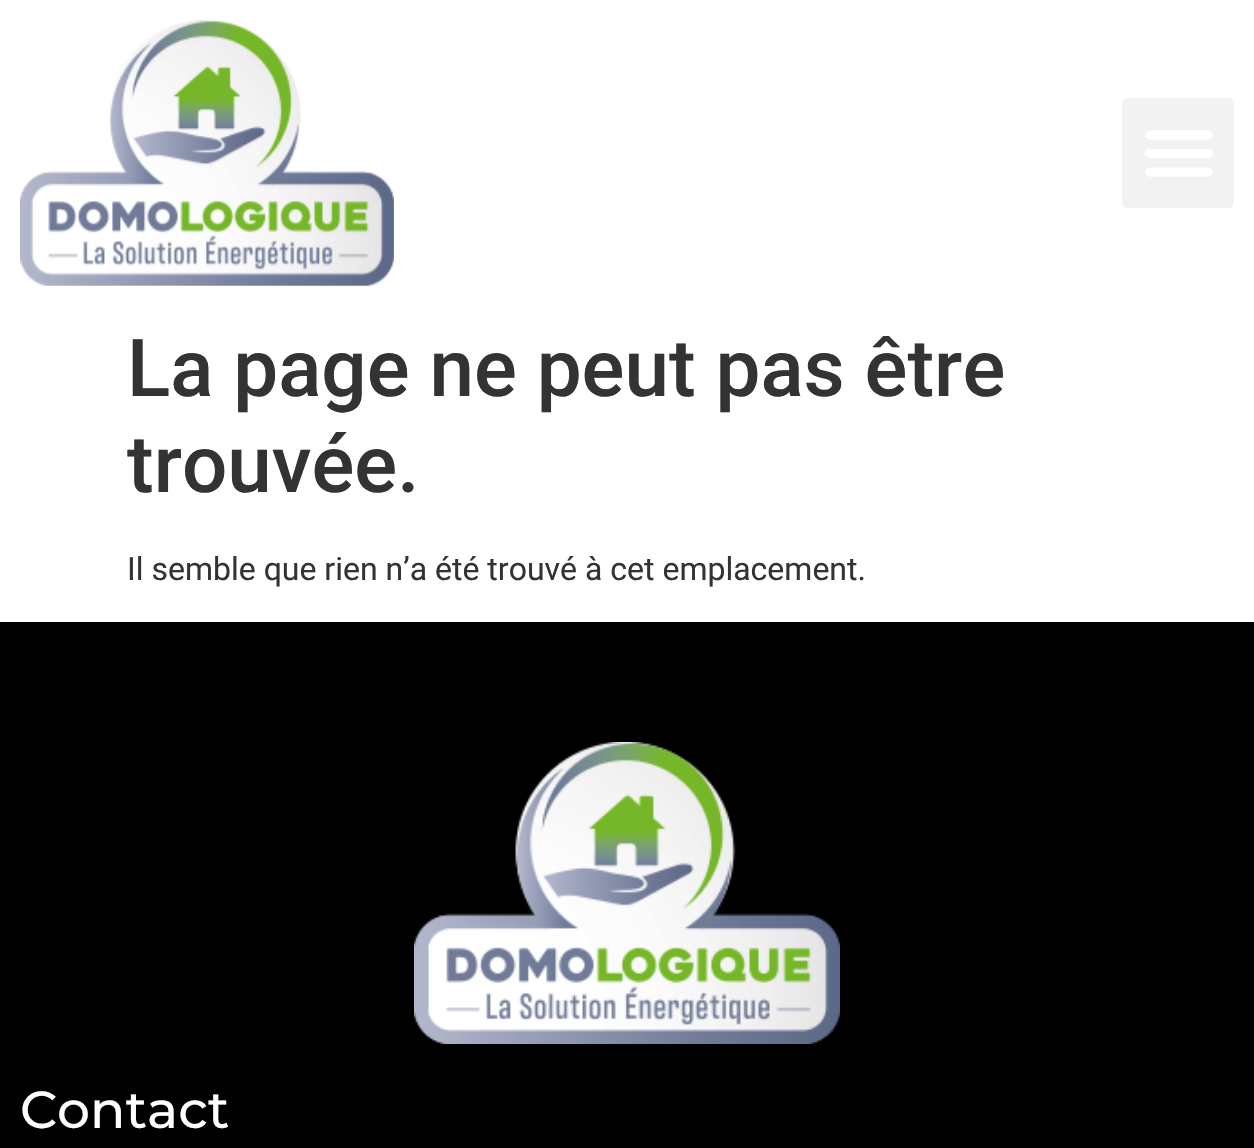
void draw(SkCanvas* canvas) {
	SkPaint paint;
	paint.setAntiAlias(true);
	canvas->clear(0xffffffff);
	canvas->drawImageRect(SkImages::DeferredFromEncodedData(SkData::MakeFromFileName("img1.png")), SkRect::MakeXYWH(20, 20, 374, 266), SkSamplingOptions());
	paint.setColor(0xfff2f2f2);
	canvas->drawRoundRect(SkRect::MakeXYWH(1122, 98, 112, 110), 6, 6, paint);
	canvas->drawImageRect(SkImages::DeferredFromEncodedData(SkData::MakeFromFileName("img2.png")), SkRect::MakeXYWH(1145, 130, 68, 47), SkSamplingOptions());
	SkFont f1(fontMgr->matchFamilyStyle("Roboto", SkFontStyle(500, SkFontStyle::kNormal_Width, SkFontStyle::kUpright_Slant)), 80);
	f1.setSubpixel(true);
	paint.setColor(0xff333333);
	canvas->drawString("La page ne peut pas être", 127, 396, f1, paint);
	canvas->drawString("trouvée.", 127, 492, f1, paint);
	SkFont f2(fontMgr->matchFamilyStyle("Roboto", SkFontStyle::Normal()), 32);
	f2.setSubpixel(true);
	canvas->drawString("Il semble que rien n’a été trouvé à cet emplacement.", 127, 580, f2, paint);
	paint.setColor(0xff000000);
	canvas->drawRect(SkRect::MakeXYWH(0, 622, 1254, 526), paint);
	canvas->drawImageRect(SkImages::DeferredFromEncodedData(SkData::MakeFromFileName("img3.png")), SkRect::MakeXYWH(414, 742, 426, 302), SkSamplingOptions());
	SkFont f3(fontMgr->matchFamilyStyle("Montserrat", SkFontStyle(500, SkFontStyle::kNormal_Width, SkFontStyle::kUpright_Slant)), 52);
	f3.setSubpixel(true);
	paint.setColor(0xffffffff);
	canvas->drawString("Contact", 20, 1128, f3, paint);
}
